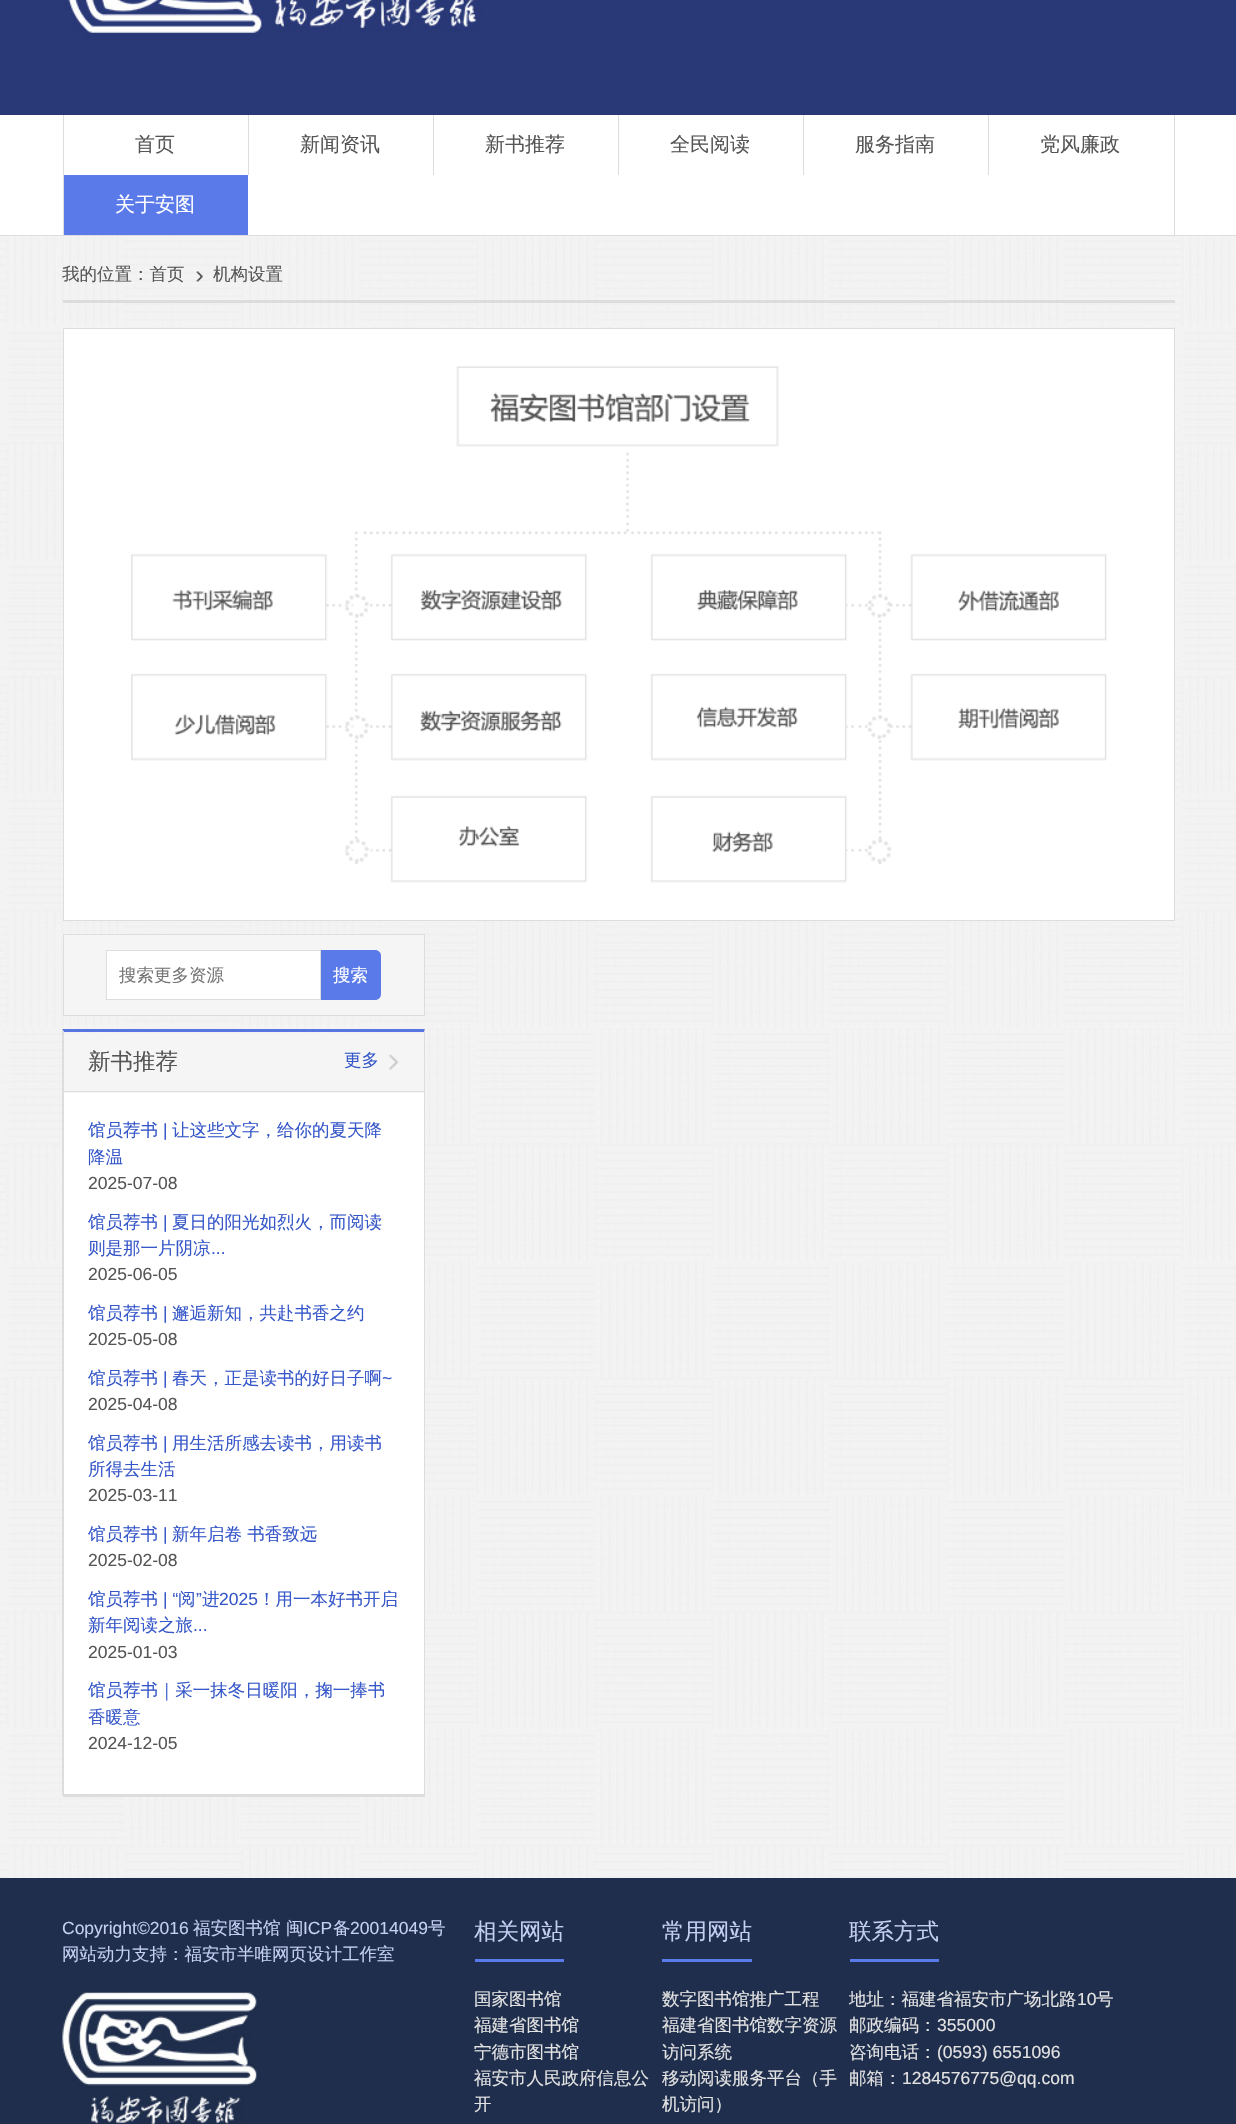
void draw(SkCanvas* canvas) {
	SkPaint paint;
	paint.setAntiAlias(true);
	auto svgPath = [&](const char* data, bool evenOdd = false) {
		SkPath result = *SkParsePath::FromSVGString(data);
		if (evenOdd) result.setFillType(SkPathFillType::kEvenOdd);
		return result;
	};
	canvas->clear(0xffffffff);
	canvas->drawImageRect(SkImages::DeferredFromEncodedData(SkData::MakeFromFileName("img1.png")), SkRect::MakeXYWH(0, 236, 1236, 1642), SkSamplingOptions());
	paint.setColor(0xff293877);
	canvas->drawRect(SkRect::MakeXYWH(0, 0, 1236, 115), paint);
	canvas->drawImageRect(SkImages::DeferredFromEncodedData(SkData::MakeFromFileName("img2.png")), SkRect::MakeXYWH(64, 0, 419, 40), SkSamplingOptions());
	paint.setColor(0xffdddddd);
	canvas->drawRect(SkRect::MakeXYWH(0, 235, 1236, 1), paint);
	canvas->drawRect(SkRect::MakeXYWH(1174, 115, 1, 120), paint);
	canvas->drawRect(SkRect::MakeXYWH(63, 115, 1, 120), paint);
	SkFont f1(fontMgr->matchFamilyStyle("WenQuanYi Zen Hei", SkFontStyle(500, SkFontStyle::kNormal_Width, SkFontStyle::kUpright_Slant)), 20);
	f1.setSubpixel(true);
	paint.setColor(0xff555555);
	canvas->drawString("首页", 135, 151, f1, paint);
	paint.setColor(0xffdddddd);
	canvas->drawRect(SkRect::MakeXYWH(248, 115, 1, 60), paint);
	paint.setColor(0xff555555);
	canvas->drawString("新闻资讯", 300, 151, f1, paint);
	paint.setColor(0xffdddddd);
	canvas->drawRect(SkRect::MakeXYWH(433, 115, 1, 60), paint);
	paint.setColor(0xff555555);
	canvas->drawString("新书推荐", 485, 151, f1, paint);
	paint.setColor(0xffdddddd);
	canvas->drawRect(SkRect::MakeXYWH(618, 115, 1, 60), paint);
	paint.setColor(0xff555555);
	canvas->drawString("全民阅读", 670, 151, f1, paint);
	paint.setColor(0xffdddddd);
	canvas->drawRect(SkRect::MakeXYWH(803, 115, 1, 60), paint);
	paint.setColor(0xff555555);
	canvas->drawString("服务指南", 855, 151, f1, paint);
	paint.setColor(0xffdddddd);
	canvas->drawRect(SkRect::MakeXYWH(988, 115, 1, 60), paint);
	paint.setColor(0xff555555);
	canvas->drawString("党风廉政", 1040, 151, f1, paint);
	paint.setColor(0xff5a7aea);
	canvas->drawRect(SkRect::MakeXYWH(64, 175, 184, 60), paint);
	paint.setColor(0xffffffff);
	canvas->drawString("关于安图", 115, 211, f1, paint);
	SkFont f2(fontMgr->matchFamilyStyle("WenQuanYi Zen Hei", SkFontStyle(500, SkFontStyle::kNormal_Width, SkFontStyle::kUpright_Slant)), 17.5);
	f2.setSubpixel(true);
	paint.setColor(0xff555555);
	canvas->drawString("我的位置：首页", 62, 280, f2, paint);
	canvas->drawImageRect(SkImages::DeferredFromEncodedData(SkData::MakeFromFileName("img3.png")), SkRect::MakeXYWH(196, 270, 7, 13), SkSamplingOptions());
	canvas->drawString("机构设置", 213, 280, f2, paint);
	paint.setColor(0xffdddddd);
	canvas->drawRect(SkRect::MakeXYWH(63, 300, 1112, 3), paint);
	paint.setColor(0xffffffff);
	canvas->drawRect(SkRect::MakeXYWH(63.5, 328.5, 1111, 592), paint);
	paint.setStroke(true);
	paint.setStrokeWidth(1);
	paint.setColor(0xffdddddd);
	canvas->drawRect(SkRect::MakeXYWH(63.5, 328.5, 1111, 592), paint);
	canvas->drawImageRect(SkImages::DeferredFromEncodedData(SkData::MakeFromFileName("img4.png")), SkRect::MakeXYWH(131, 366, 976, 517), SkSamplingOptions());
	paint.setStroke(false);
	paint.setColor(0xfff5f5f5);
	canvas->drawRect(SkRect::MakeXYWH(63.5, 934.5, 361, 81), paint);
	paint.setStroke(true);
	paint.setColor(0xffdddddd);
	canvas->drawRect(SkRect::MakeXYWH(63.5, 934.5, 361, 81), paint);
	paint.setStroke(false);
	paint.setColor(0xffffffff);
	canvas->drawRect(SkRect::MakeXYWH(106.5, 950.5, 214, 49), paint);
	paint.setStroke(true);
	paint.setColor(0xffdddddd);
	canvas->drawRect(SkRect::MakeXYWH(106.5, 950.5, 214, 49), paint);
	paint.setStroke(false);
	paint.setColor(0xff757575);
	canvas->drawString("搜索更多资源", 119, 981, f2, paint);
	paint.setColor(0xff5a7aea);
	canvas->drawPath(svgPath("M321 950H375C378.5 950 381 952.5 381 956V994C381 997.5 378.5 1000 375 1000H321Z"), paint);
	paint.setColor(0xffffffff);
	canvas->drawString("搜索", 333, 981, f2, paint);
	canvas->drawRect(SkRect::MakeXYWH(64, 1093, 360, 701), paint);
	paint.setColor(0xff5776e2);
	canvas->drawPath(svgPath("M62 1029H425L424 1032H64Z"), paint);
	paint.setColor(0xffdddddd);
	canvas->drawPath(svgPath("M425 1029V1796L424 1794V1032Z"), paint);
	canvas->drawRect(SkRect::MakeXYWH(63, 1794, 362, 3), paint);
	canvas->drawPath(svgPath("M62 1796V1029L64 1032V1794Z"), paint);
	paint.setColor(0xfff5f5f5);
	canvas->drawRect(SkRect::MakeXYWH(64, 1033, 360, 60), paint);
	paint.setColor(0xffdddddd);
	canvas->drawRect(SkRect::MakeXYWH(64, 1091, 360, 1), paint);
	SkFont f3(fontMgr->matchFamilyStyle("WenQuanYi Zen Hei", SkFontStyle(500, SkFontStyle::kNormal_Width, SkFontStyle::kUpright_Slant)), 22.5);
	f3.setSubpixel(true);
	paint.setColor(0xff555555);
	canvas->drawString("新书推荐", 88, 1069, f3, paint);
	canvas->drawImageRect(SkImages::DeferredFromEncodedData(SkData::MakeFromFileName("img5.png")), SkRect::MakeXYWH(388, 1054, 11, 17), SkSamplingOptions());
	paint.setColor(0xff3657c9);
	canvas->drawString("更多", 344, 1066, f2, paint);
	canvas->drawString("馆员荐书", 88, 1136, f2, paint);
	SkFont f4(fontMgr->matchFamilyStyle("Liberation Sans", SkFontStyle::Normal()), 17.5);
	f4.setSubpixel(true);
	canvas->drawString("|", 163, 1136, f4, paint);
	canvas->drawString("让这些文字，给你的夏天降", 172, 1136, f2, paint);
	canvas->drawString("降温", 88, 1163, f2, paint);
	paint.setColor(0xff555555);
	canvas->drawString("2025-07-08", 88, 1189, f4, paint);
	paint.setColor(0xff3657c9);
	canvas->drawString("馆员荐书", 88, 1228, f2, paint);
	canvas->drawString("|", 163, 1228, f4, paint);
	canvas->drawString("夏日的阳光如烈火，而阅读", 172, 1228, f2, paint);
	canvas->drawString("则是那一片阴凉", 88, 1254, f2, paint);
	canvas->drawString("...", 211, 1254, f4, paint);
	paint.setColor(0xff555555);
	canvas->drawString("2025-06-05", 88, 1280, f4, paint);
	paint.setColor(0xff3657c9);
	canvas->drawString("馆员荐书", 88, 1319, f2, paint);
	canvas->drawString("|", 163, 1319, f4, paint);
	canvas->drawString("邂逅新知，共赴书香之约", 172, 1319, f2, paint);
	paint.setColor(0xff555555);
	canvas->drawString("2025-05-08", 88, 1345, f4, paint);
	paint.setColor(0xff3657c9);
	canvas->drawString("馆员荐书", 88, 1384, f2, paint);
	canvas->drawString("|", 163, 1384, f4, paint);
	canvas->drawString("春天，正是读书的好日子啊", 172, 1384, f2, paint);
	canvas->drawString("~", 382, 1384, f4, paint);
	paint.setColor(0xff555555);
	canvas->drawString("2025-04-08", 88, 1410, f4, paint);
	paint.setColor(0xff3657c9);
	canvas->drawString("馆员荐书", 88, 1449, f2, paint);
	canvas->drawString("|", 163, 1449, f4, paint);
	canvas->drawString("用生活所感去读书，用读书", 172, 1449, f2, paint);
	canvas->drawString("所得去生活", 88, 1475, f2, paint);
	paint.setColor(0xff555555);
	canvas->drawString("2025-03-11", 88, 1501, f4, paint);
	paint.setColor(0xff3657c9);
	canvas->drawString("馆员荐书", 88, 1540, f2, paint);
	canvas->drawString("|", 163, 1540, f4, paint);
	canvas->drawString("新年启卷 书香致远", 172, 1540, f2, paint);
	paint.setColor(0xff555555);
	canvas->drawString("2025-02-08", 88, 1566, f4, paint);
	paint.setColor(0xff3657c9);
	canvas->drawString("馆员荐书", 88, 1605, f2, paint);
	canvas->drawString("| “", 163, 1605, f4, paint);
	canvas->drawString("阅", 178, 1605, f2, paint);
	canvas->drawString("”", 196, 1605, f4, paint);
	canvas->drawString("进", 202, 1605, f2, paint);
	canvas->drawString("2025", 219, 1605, f4, paint);
	canvas->drawString("！用一本好书开启", 258, 1605, f2, paint);
	canvas->drawString("新年阅读之旅", 88, 1631, f2, paint);
	canvas->drawString("...", 193, 1631, f4, paint);
	paint.setColor(0xff555555);
	canvas->drawString("2025-01-03", 88, 1658, f4, paint);
	paint.setColor(0xff3657c9);
	canvas->drawString("馆员荐书｜采一抹冬日暖阳，掬一捧书", 88, 1696, f2, paint);
	canvas->drawString("香暖意", 88, 1723, f2, paint);
	paint.setColor(0xff555555);
	canvas->drawString("2024-12-05", 88, 1749, f4, paint);
	paint.setColor(0xff1f2e4c);
	canvas->drawRect(SkRect::MakeXYWH(0, 1878, 1236, 246), paint);
	paint.setColor(0xffc4cff2);
	canvas->drawString("Copyright©2016", 62, 1934, f4, paint);
	canvas->drawString("福安图书馆", 193, 1934, f2, paint);
	canvas->drawString("闽", 286, 1934, f2, paint);
	canvas->drawString("ICP", 303, 1934, f4, paint);
	canvas->drawString("备", 333, 1934, f2, paint);
	canvas->drawString("20014049", 350, 1934, f4, paint);
	canvas->drawString("号", 428, 1934, f2, paint);
	canvas->drawString("网站动力支持：福安市半唯网页设计工作室", 62, 1960, f2, paint);
	canvas->drawImageRect(SkImages::DeferredFromEncodedData(SkData::MakeFromFileName("img6.png")), SkRect::MakeXYWH(62, 1992, 195, 132), SkSamplingOptions());
	paint.setColor(0xff5a7aea);
	canvas->drawRect(SkRect::MakeXYWH(475, 1959, 89, 3), paint);
	paint.setColor(0xffc4cff2);
	canvas->drawString("相关网站", 474, 1939, f3, paint);
	paint.setColor(0xffe3e3e3);
	canvas->drawString("国家图书馆", 474, 2005, f2, paint);
	canvas->drawString("福建省图书馆", 474, 2031, f2, paint);
	canvas->drawString("宁德市图书馆", 474, 2058, f2, paint);
	canvas->drawString("福安市人民政府信息公", 474, 2084, f2, paint);
	canvas->drawString("开", 474, 2110, f2, paint);
	paint.setColor(0xff5a7aea);
	canvas->drawRect(SkRect::MakeXYWH(662, 1959, 90, 3), paint);
	paint.setColor(0xffc4cff2);
	canvas->drawString("常用网站", 662, 1939, f3, paint);
	paint.setColor(0xffe3e3e3);
	canvas->drawString("数字图书馆推广工程", 662, 2005, f2, paint);
	canvas->drawString("福建省图书馆数字资源", 662, 2031, f2, paint);
	canvas->drawString("访问系统", 662, 2058, f2, paint);
	canvas->drawString("移动阅读服务平台（手", 662, 2084, f2, paint);
	canvas->drawString("机访问）", 662, 2110, f2, paint);
	paint.setColor(0xff5a7aea);
	canvas->drawRect(SkRect::MakeXYWH(850, 1959, 89, 3), paint);
	paint.setColor(0xffc4cff2);
	canvas->drawString("联系方式", 849, 1939, f3, paint);
	paint.setColor(0xffe3e3e3);
	canvas->drawString("地址：福建省福安市广场北路", 849, 2005, f2, paint);
	canvas->drawString("10", 1077, 2005, f4, paint);
	canvas->drawString("号", 1096, 2005, f2, paint);
	canvas->drawString("邮政编码：", 849, 2031, f2, paint);
	canvas->drawString("355000", 937, 2031, f4, paint);
	canvas->drawString("咨询电话：", 849, 2058, f2, paint);
	canvas->drawString("(0593) 6551096", 937, 2058, f4, paint);
	canvas->drawString("邮箱：", 849, 2084, f2, paint);
	canvas->drawString("1284576775@qq.com", 902, 2084, f4, paint);
}
